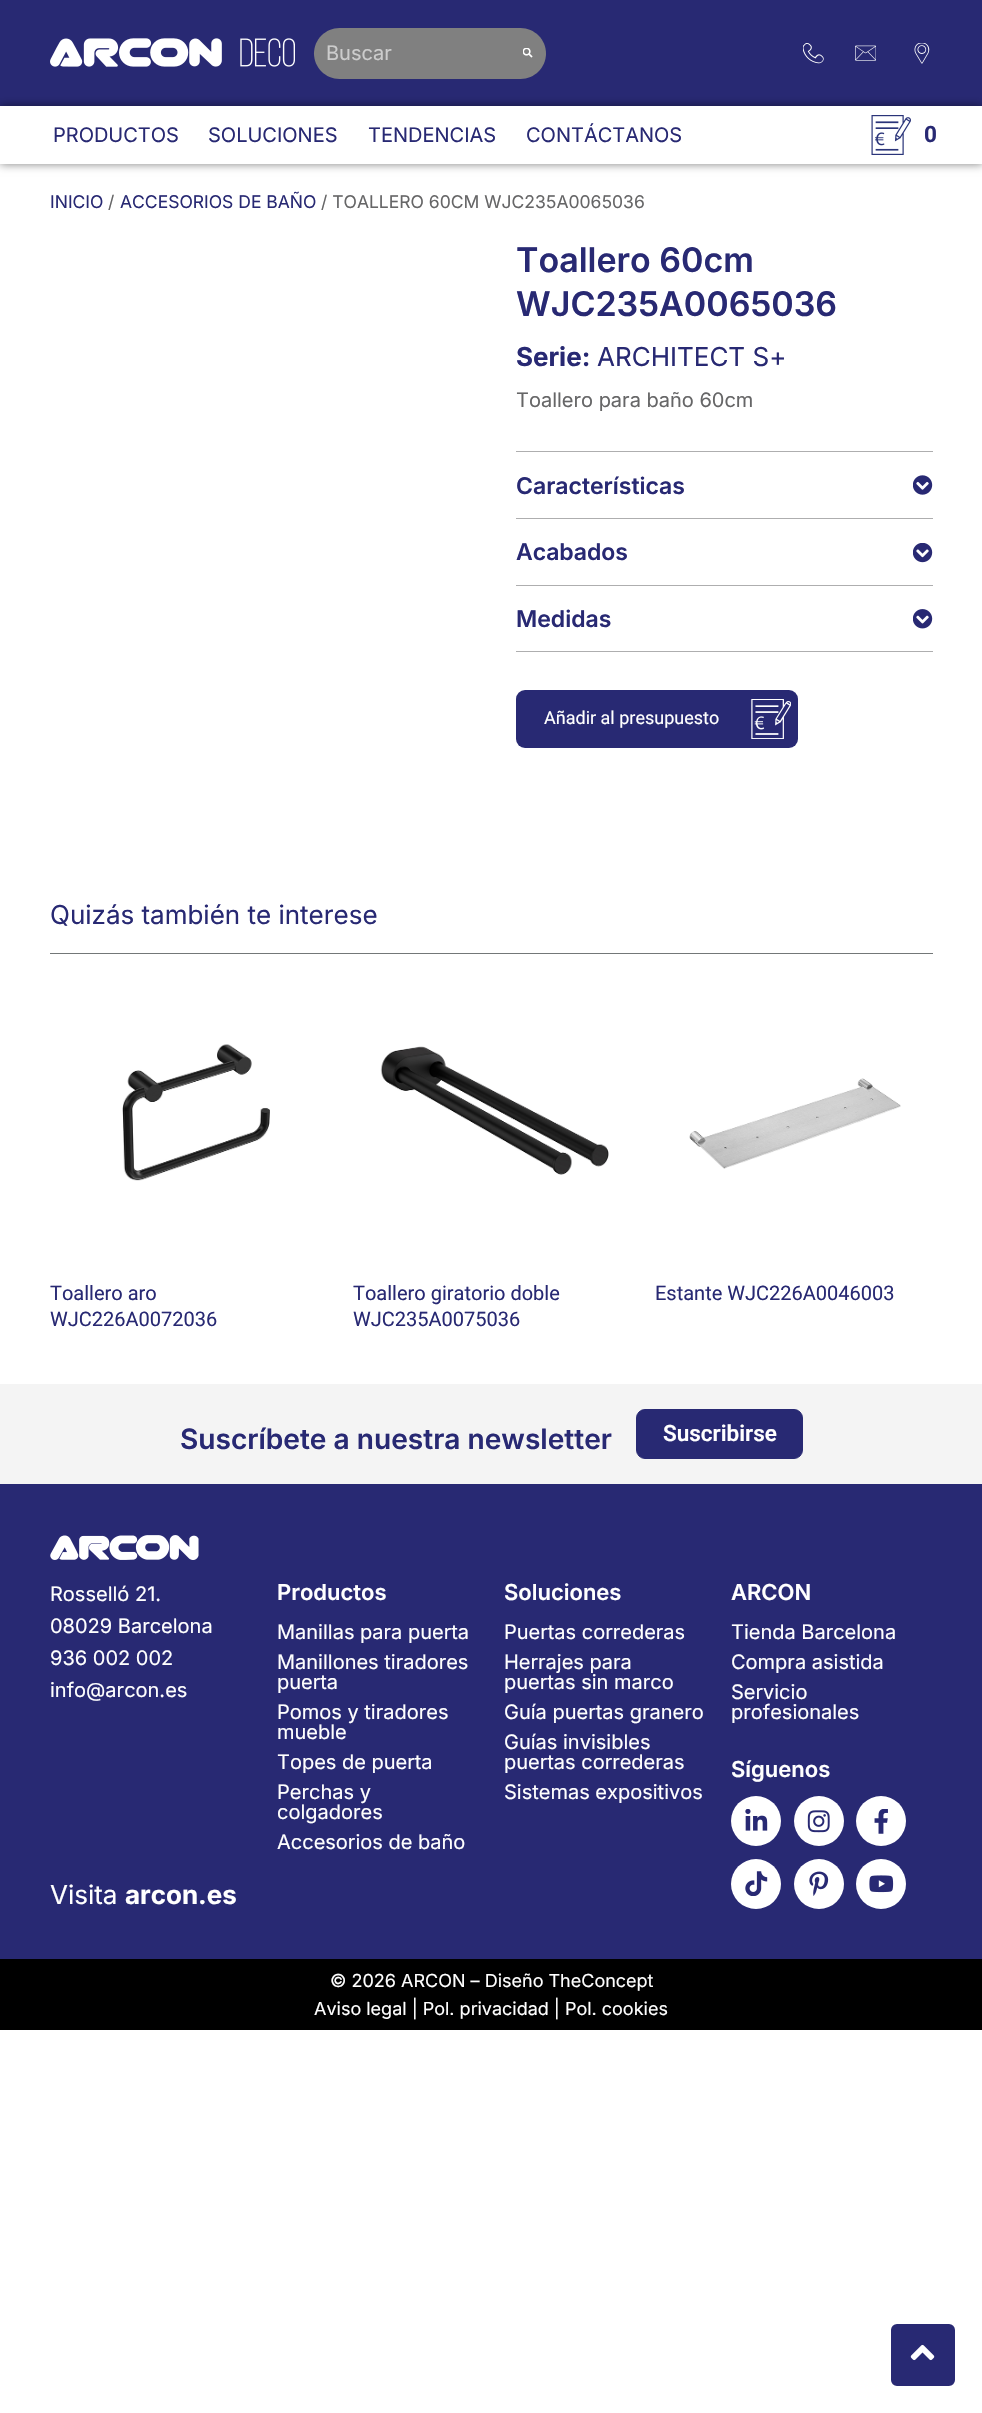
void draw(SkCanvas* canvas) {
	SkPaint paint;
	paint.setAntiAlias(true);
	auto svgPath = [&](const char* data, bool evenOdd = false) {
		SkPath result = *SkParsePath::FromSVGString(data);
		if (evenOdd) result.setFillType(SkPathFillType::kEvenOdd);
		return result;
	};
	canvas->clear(0xffffffff);
	paint.setColor(0xff282973);
	canvas->drawRect(SkRect::MakeXYWH(0, 0, 982, 106), paint);
	canvas->drawImageRect(SkImages::DeferredFromEncodedData(SkData::MakeFromFileName("img1.png")), SkRect::MakeXYWH(50, 38, 245, 29), SkSamplingOptions());
	paint.setColor(0xff808080);
	canvas->drawPath(svgPath("M339.5 28H509V79H339.5C325.5 79 314 67.5 314 53.5C314 39.5 325.5 28 339.5 28Z"), paint);
	SkFont f1(fontMgr->matchFamilyStyle("Inter", SkFontStyle::Normal()), 20);
	f1.setSubpixel(true);
	paint.setColor(0xffcccccc);
	canvas->drawString("Buscar", 326, 60, f1, paint);
	paint.setColor(0xff808080);
	canvas->drawPath(svgPath("M509 28H520.5C534.5 28 546 39.5 546 53.5C546 67.5 534.5 79 520.5 79H509Z"), paint);
	canvas->drawImageRect(SkImages::DeferredFromEncodedData(SkData::MakeFromFileName("img2.png")), SkRect::MakeXYWH(523, 48, 10, 10), SkSamplingOptions());
	canvas->drawImageRect(SkImages::DeferredFromEncodedData(SkData::MakeFromFileName("img3.png")), SkRect::MakeXYWH(803, 43, 21, 21), SkSamplingOptions());
	canvas->drawImageRect(SkImages::DeferredFromEncodedData(SkData::MakeFromFileName("img4.png")), SkRect::MakeXYWH(855, 45, 21, 16), SkSamplingOptions());
	canvas->drawImageRect(SkImages::DeferredFromEncodedData(SkData::MakeFromFileName("img5.png")), SkRect::MakeXYWH(914, 43, 16, 21), SkSamplingOptions());
	canvas->save();
	canvas->clipPath(svgPath("M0 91H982V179H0ZM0 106H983V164H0Z", true), true);
	paint.setColor(0x80000000);
	paint.setMaskFilter(SkMaskFilter::MakeBlur(kNormal_SkBlurStyle, 4.5));
	canvas->drawRect(SkRect::MakeXYWH(0, 106, 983, 58), paint);
	paint.setMaskFilter(nullptr);
	canvas->restore();
	paint.setColor(0xff282973);
	canvas->drawString("PRODUCTOS", 53, 142, f1, paint);
	canvas->drawString("SOLUCIONES", 208, 142, f1, paint);
	canvas->drawString("TENDENCIAS", 368, 142, f1, paint);
	canvas->drawString("CONTÁCTANOS", 526, 142, f1, paint);
	canvas->drawImageRect(SkImages::DeferredFromEncodedData(SkData::MakeFromFileName("img6.png")), SkRect::MakeXYWH(871, 115, 40, 40), SkSamplingOptions());
	SkFont f2(fontMgr->matchFamilyStyle("Roboto", SkFontStyle::Bold()), 22.5);
	f2.setSubpixel(true);
	canvas->drawString("0", 924, 142, f2, paint);
	SkFont f3(fontMgr->matchFamilyStyle("Inter", SkFontStyle::Normal()), 17.5);
	f3.setSubpixel(true);
	canvas->drawString("INICIO", 50, 208, f3, paint);
	paint.setColor(0xff666667);
	canvas->drawString("/", 108, 208, f3, paint);
	paint.setColor(0xff282973);
	canvas->drawString("ACCESORIOS DE BAÑO", 120, 208, f3, paint);
	paint.setColor(0xff666667);
	canvas->drawString("/ TOALLERO 60CM WJC235A0065036", 321, 208, f3, paint);
	paint.setColor(0xff282973);
	canvas->drawRoundRect(SkRect::MakeXYWH(889.5, 2322.5, 67, 65), 7.5, 7.5, paint);
	paint.setStroke(true);
	paint.setStrokeWidth(3);
	paint.setColor(0xffffffff);
	canvas->drawRoundRect(SkRect::MakeXYWH(889.5, 2322.5, 67, 65), 7.5, 7.5, paint);
	canvas->drawImageRect(SkImages::DeferredFromEncodedData(SkData::MakeFromFileName("img7.png")), SkRect::MakeXYWH(910, 2344, 25, 17), SkSamplingOptions());
	SkFont f4(fontMgr->matchFamilyStyle("Inter", SkFontStyle(600, SkFontStyle::kNormal_Width, SkFontStyle::kUpright_Slant)), 34);
	f4.setSubpixel(true);
	paint.setStroke(false);
	paint.setColor(0xff282973);
	canvas->drawString("Toallero 60cm", 516, 272, f4, paint);
	canvas->drawString("WJC235A0065036", 516, 316, f4, paint);
	SkFont f5(fontMgr->matchFamilyStyle("Inter", SkFontStyle::Bold()), 26);
	f5.setSubpixel(true);
	canvas->drawString("Serie:", 516, 366, f5, paint);
	SkFont f6(fontMgr->matchFamilyStyle("Inter", SkFontStyle::Normal()), 26);
	f6.setSubpixel(true);
	canvas->drawString("ARCHITECT S+", 597, 366, f6, paint);
	paint.setColor(0xff666667);
	canvas->drawString("Toallero para baño 60cm", 516, 407, f1, paint);
	paint.setColor(0xffaeaeaf);
	canvas->drawRect(SkRect::MakeXYWH(516, 451, 417, 1), paint);
	canvas->drawRect(SkRect::MakeXYWH(516, 518, 417, 1), paint);
	SkFont f7(fontMgr->matchFamilyStyle("Inter", SkFontStyle(600, SkFontStyle::kNormal_Width, SkFontStyle::kUpright_Slant)), 23);
	f7.setSubpixel(true);
	paint.setColor(0xff282973);
	canvas->drawString("Características", 516, 494, f7, paint);
	canvas->drawImageRect(SkImages::DeferredFromEncodedData(SkData::MakeFromFileName("img8.png")), SkRect::MakeXYWH(913, 475, 20, 20), SkSamplingOptions());
	paint.setColor(0xffaeaeaf);
	canvas->drawRect(SkRect::MakeXYWH(516, 585, 417, 1), paint);
	paint.setColor(0xff282973);
	canvas->drawString("Acabados", 516, 560, f7, paint);
	canvas->drawImageRect(SkImages::DeferredFromEncodedData(SkData::MakeFromFileName("img9.png")), SkRect::MakeXYWH(913, 543, 20, 20), SkSamplingOptions());
	paint.setColor(0xffaeaeaf);
	canvas->drawRect(SkRect::MakeXYWH(516, 651, 417, 1), paint);
	paint.setColor(0xff282973);
	canvas->drawString("Medidas", 516, 627, f7, paint);
	canvas->drawImageRect(SkImages::DeferredFromEncodedData(SkData::MakeFromFileName("img10.png")), SkRect::MakeXYWH(913, 609, 20, 20), SkSamplingOptions());
	canvas->drawRoundRect(SkRect::MakeXYWH(516, 690, 282, 58), 9, 9, paint);
	canvas->drawImageRect(SkImages::DeferredFromEncodedData(SkData::MakeFromFileName("img11.png")), SkRect::MakeXYWH(751, 699, 40, 40), SkSamplingOptions());
	SkFont f8(fontMgr->matchFamilyStyle("Roboto", SkFontStyle::Normal()), 18);
	f8.setSubpixel(true);
	paint.setColor(0xffffffff);
	canvas->drawString("Añadir al presupuesto", 544, 724, f8, paint);
	paint.setColor(0xff737778);
	canvas->drawRect(SkRect::MakeXYWH(50, 953, 883, 1), paint);
	paint.setColor(0xff282973);
	canvas->drawString("Quizás también te interese", 50, 924, f6, paint);
	canvas->drawImageRect(SkImages::DeferredFromEncodedData(SkData::MakeFromFileName("img12.png")), SkRect::MakeXYWH(122, 1044, 148, 137), SkSamplingOptions());
	SkFont f9(fontMgr->matchFamilyStyle("Roboto", SkFontStyle::Normal()), 20);
	f9.setSubpixel(true);
	canvas->drawString("Toallero aro", 50, 1300, f9, paint);
	canvas->drawString("WJC226A0072036", 50, 1326, f9, paint);
	canvas->drawImageRect(SkImages::DeferredFromEncodedData(SkData::MakeFromFileName("img13.png")), SkRect::MakeXYWH(380, 1046, 229, 129), SkSamplingOptions());
	canvas->drawString("Toallero giratorio doble", 353, 1300, f9, paint);
	canvas->drawString("WJC235A0075036", 353, 1326, f9, paint);
	canvas->drawImageRect(SkImages::DeferredFromEncodedData(SkData::MakeFromFileName("img14.png")), SkRect::MakeXYWH(689, 1078, 212, 91), SkSamplingOptions());
	canvas->drawString("Estante WJC226A0046003", 655, 1300, f9, paint);
	paint.setColor(0xfff4f4f4);
	canvas->drawRect(SkRect::MakeXYWH(0, 1384, 982, 100), paint);
	SkFont f10(fontMgr->matchFamilyStyle("Inter", SkFontStyle(600, SkFontStyle::kNormal_Width, SkFontStyle::kUpright_Slant)), 28.1);
	f10.setSubpixel(true);
	paint.setColor(0xff282973);
	canvas->drawString("Suscríbete a nuestra newsletter", 180, 1449, f10, paint);
	canvas->drawRoundRect(SkRect::MakeXYWH(636.5, 1409.5, 166, 49), 8.5, 8.5, paint);
	paint.setStroke(true);
	paint.setStrokeWidth(1);
	canvas->drawRoundRect(SkRect::MakeXYWH(636.5, 1409.5, 166, 49), 8.5, 8.5, paint);
	SkFont f11(fontMgr->matchFamilyStyle("Roboto", SkFontStyle(600, SkFontStyle::kNormal_Width, SkFontStyle::kUpright_Slant)), 22.5);
	f11.setSubpixel(true);
	paint.setStroke(false);
	paint.setColor(0xffffffff);
	canvas->drawString("Suscribirse", 663, 1441, f11, paint);
	paint.setColor(0xff282973);
	canvas->drawRect(SkRect::MakeXYWH(0, 1484, 982, 475), paint);
	canvas->drawImageRect(SkImages::DeferredFromEncodedData(SkData::MakeFromFileName("img15.png")), SkRect::MakeXYWH(50, 1535, 149, 25), SkSamplingOptions());
	paint.setColor(0xffffffff);
	canvas->drawString("Rosselló 21.", 50, 1601, f1, paint);
	canvas->drawString("08029 Barcelona", 50, 1633, f1, paint);
	canvas->drawString("936 002 002", 50, 1665, f1, paint);
	canvas->drawString("info@arcon.es", 50, 1697, f1, paint);
	canvas->drawString("Visita", 50, 1904, f6, paint);
	canvas->drawString("arcon.es", 125, 1904, f5, paint);
	SkFont f12(fontMgr->matchFamilyStyle("Inter", SkFontStyle(600, SkFontStyle::kNormal_Width, SkFontStyle::kUpright_Slant)), 22);
	f12.setSubpixel(true);
	canvas->drawString("Productos", 277, 1600, f12, paint);
	canvas->drawString("Manillas para puerta", 277, 1639, f1, paint);
	canvas->drawString("Manillones tiradores", 277, 1669, f1, paint);
	canvas->drawString("puerta", 277, 1689, f1, paint);
	canvas->drawString("Pomos y tiradores", 277, 1719, f1, paint);
	canvas->drawString("mueble", 277, 1739, f1, paint);
	canvas->drawString("Topes de puerta", 277, 1769, f1, paint);
	canvas->drawString("Perchas y", 277, 1799, f1, paint);
	canvas->drawString("colgadores", 277, 1819, f1, paint);
	canvas->drawString("Accesorios de baño", 277, 1849, f1, paint);
	canvas->drawString("Soluciones", 504, 1600, f12, paint);
	canvas->drawString("Puertas correderas", 504, 1639, f1, paint);
	canvas->drawString("Herrajes para", 504, 1669, f1, paint);
	canvas->drawString("puertas sin marco", 504, 1689, f1, paint);
	canvas->drawString("Guía puertas granero", 504, 1719, f1, paint);
	canvas->drawString("Guías invisibles", 504, 1749, f1, paint);
	canvas->drawString("puertas correderas", 504, 1769, f1, paint);
	canvas->drawString("Sistemas expositivos", 504, 1799, f1, paint);
	canvas->drawString("ARCON", 731, 1600, f12, paint);
	canvas->drawString("Tienda Barcelona", 731, 1639, f1, paint);
	canvas->drawString("Compra asistida", 731, 1669, f1, paint);
	canvas->drawString("Servicio", 731, 1699, f1, paint);
	canvas->drawString("profesionales", 731, 1719, f1, paint);
	canvas->drawString("Síguenos", 731, 1777, f12, paint);
	canvas->drawCircle(756, 1821, 25, paint);
	canvas->drawImageRect(SkImages::DeferredFromEncodedData(SkData::MakeFromFileName("img16.png")), SkRect::MakeXYWH(745, 1809, 23, 22), SkSamplingOptions());
	canvas->drawCircle(819, 1821, 25, paint);
	canvas->drawImageRect(SkImages::DeferredFromEncodedData(SkData::MakeFromFileName("img17.png")), SkRect::MakeXYWH(807, 1810, 23, 23), SkSamplingOptions());
	canvas->drawCircle(881, 1821, 25, paint);
	canvas->drawImageRect(SkImages::DeferredFromEncodedData(SkData::MakeFromFileName("img18.png")), SkRect::MakeXYWH(874, 1809, 14, 25), SkSamplingOptions());
	canvas->drawCircle(756, 1884, 25, paint);
	canvas->drawImageRect(SkImages::DeferredFromEncodedData(SkData::MakeFromFileName("img19.png")), SkRect::MakeXYWH(745, 1871, 23, 25), SkSamplingOptions());
	canvas->drawCircle(819, 1884, 25, paint);
	canvas->drawImageRect(SkImages::DeferredFromEncodedData(SkData::MakeFromFileName("img20.png")), SkRect::MakeXYWH(809, 1871, 20, 25), SkSamplingOptions());
	canvas->drawCircle(881, 1884, 25, paint);
	canvas->drawImageRect(SkImages::DeferredFromEncodedData(SkData::MakeFromFileName("img21.png")), SkRect::MakeXYWH(869, 1875, 25, 18), SkSamplingOptions());
	paint.setColor(0xff000000);
	canvas->drawRect(SkRect::MakeXYWH(0, 1959, 982, 71), paint);
	SkFont f13(fontMgr->matchFamilyStyle("Inter", SkFontStyle::Normal()), 18);
	f13.setSubpixel(true);
	paint.setColor(0xffffffff);
	canvas->drawString("© 2026 ARCON – Diseño TheConcept", 330, 1987, f13, paint);
	canvas->drawString("Aviso legal | Pol. privacidad | Pol. cookies", 314, 2015, f13, paint);
}
